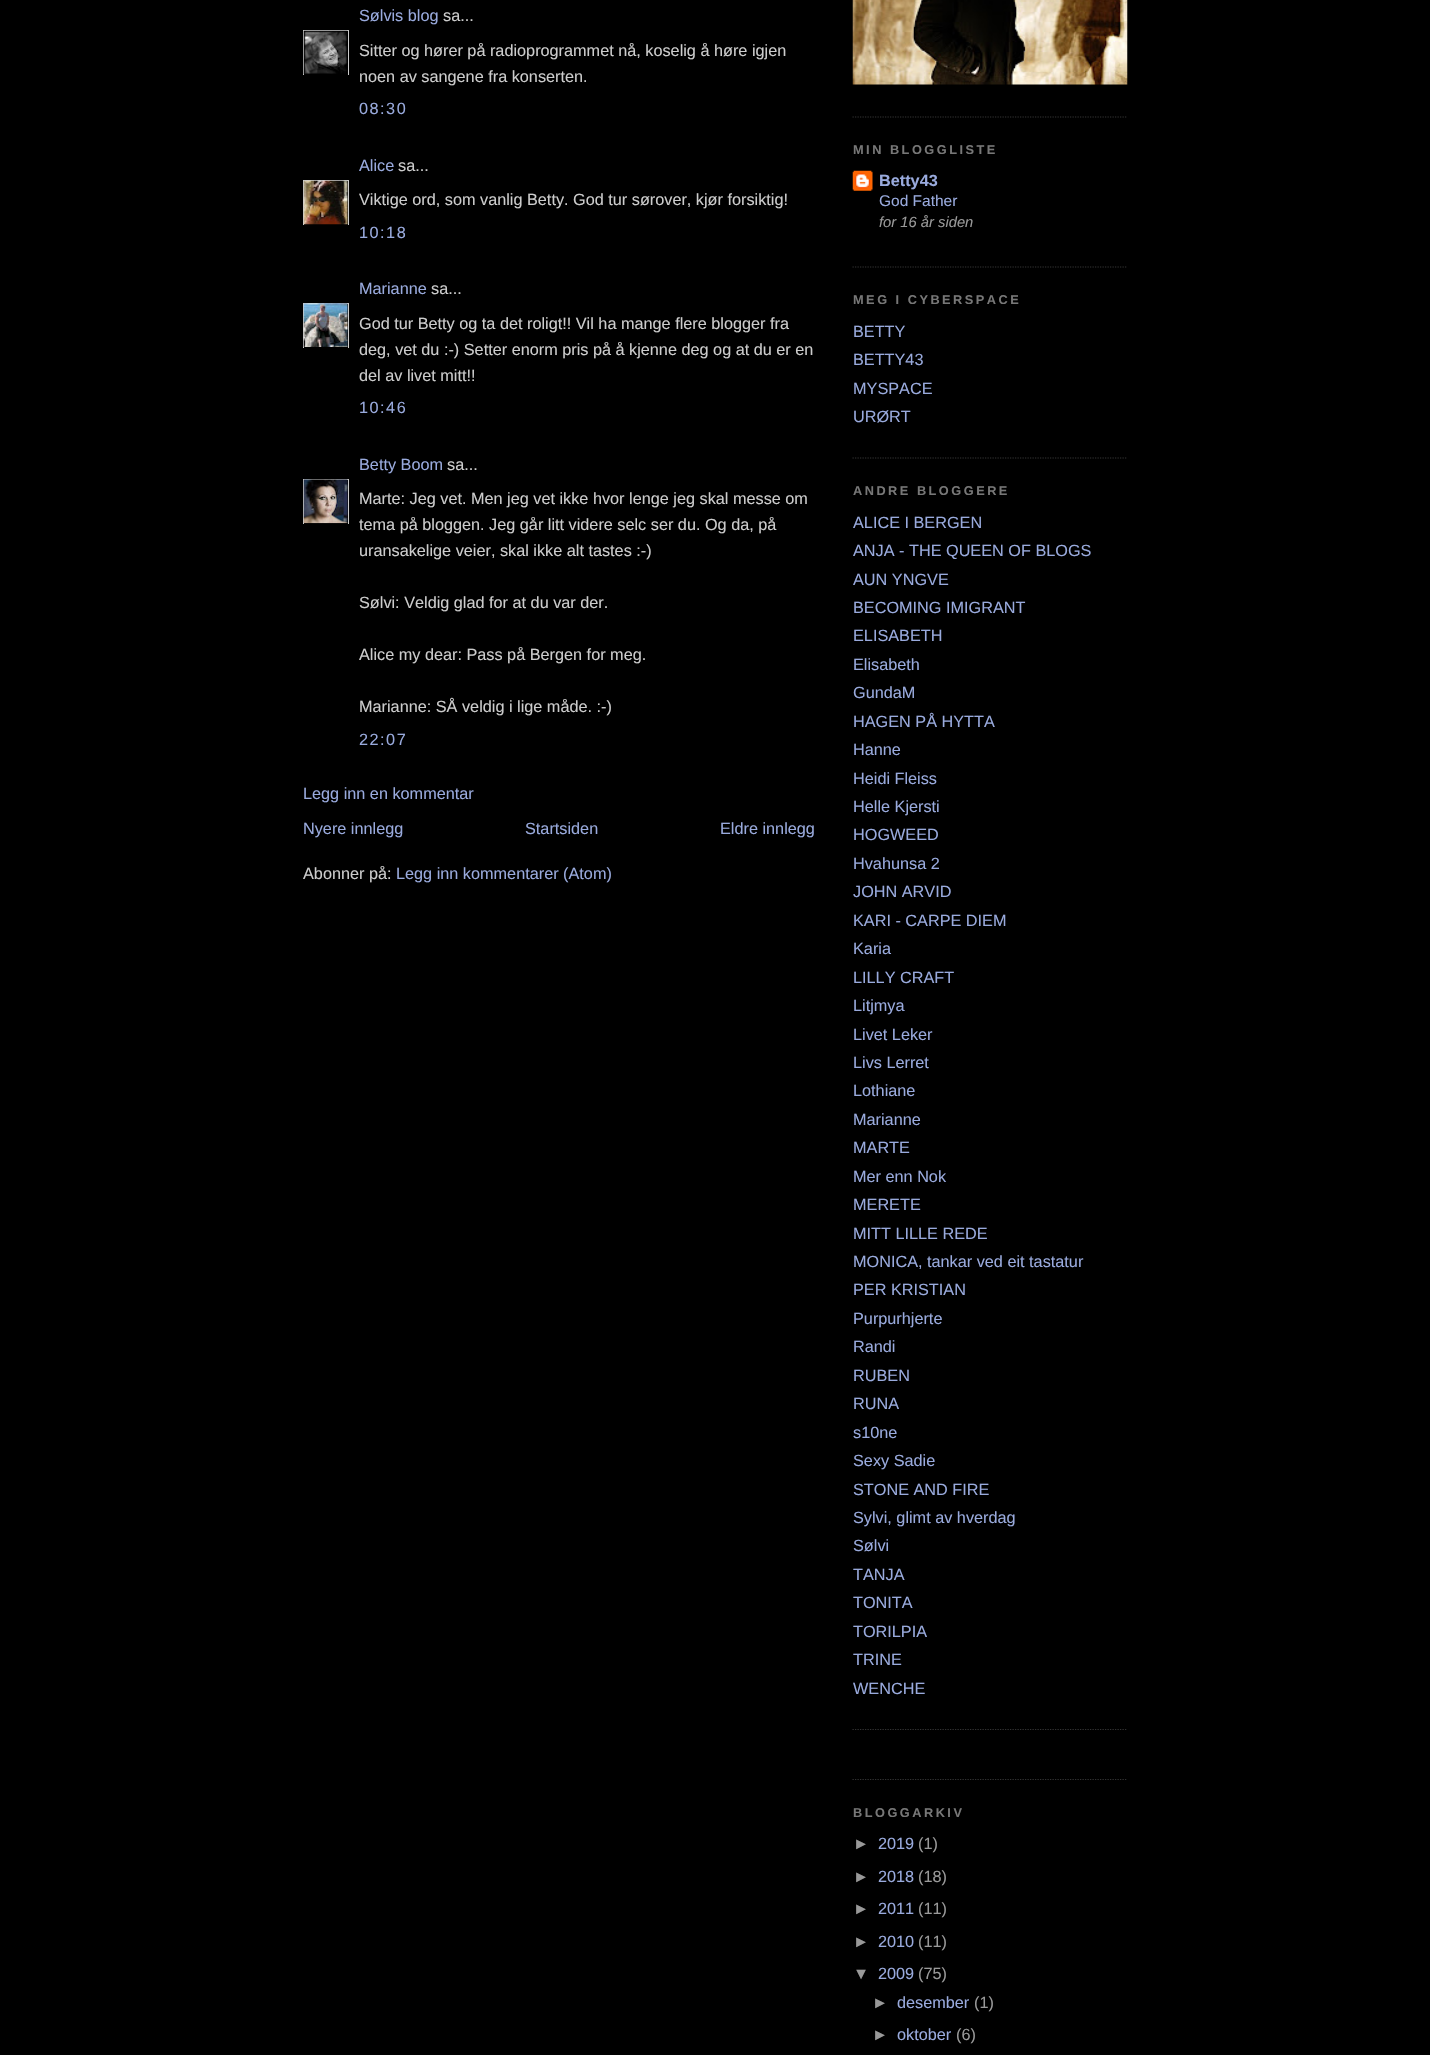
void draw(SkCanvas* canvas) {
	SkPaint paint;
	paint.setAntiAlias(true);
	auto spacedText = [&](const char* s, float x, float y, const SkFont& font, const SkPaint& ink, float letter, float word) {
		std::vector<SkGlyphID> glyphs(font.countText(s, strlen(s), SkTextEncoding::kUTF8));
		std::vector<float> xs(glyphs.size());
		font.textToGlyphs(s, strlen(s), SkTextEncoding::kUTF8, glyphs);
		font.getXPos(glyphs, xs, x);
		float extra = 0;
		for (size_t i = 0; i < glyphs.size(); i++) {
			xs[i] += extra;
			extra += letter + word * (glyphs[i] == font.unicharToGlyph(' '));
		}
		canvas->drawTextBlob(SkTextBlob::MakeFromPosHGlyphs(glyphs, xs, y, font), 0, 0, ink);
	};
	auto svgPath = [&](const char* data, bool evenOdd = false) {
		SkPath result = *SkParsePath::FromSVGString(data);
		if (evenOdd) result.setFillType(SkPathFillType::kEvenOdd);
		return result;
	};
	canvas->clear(0xff000000);
	SkFont f1(fontMgr->matchFamilyStyle("Liberation Sans", SkFontStyle::Normal()), 16.25);
	f1.setSubpixel(true);
	paint.setColor(0xff99aadd);
	canvas->drawString("Sølvis blog", 359, 21, f1, paint);
	paint.setColor(0xffcccccc);
	canvas->drawString("sa...", 443, 21, f1, paint);
	canvas->save();
	canvas->clipRect(SkRect::MakeXYWH(303, 30, 46, 45));
	paint.setStroke(true);
	paint.setStrokeWidth(1);
	canvas->drawRect(SkRect::MakeXYWH(303.5, 30.5, 45, 45), paint);
	canvas->restore();
	canvas->drawImageRect(SkImages::DeferredFromEncodedData(SkData::MakeFromFileName("img1.png")), SkRect::MakeXYWH(303, 30, 45, 45), SkSamplingOptions());
	paint.setStroke(false);
	canvas->drawString("Sitter og hører på radioprogrammet nå, koselig å høre igjen", 359, 56, f1, paint);
	canvas->drawString("noen av sangene fra konserten.", 359, 82, f1, paint);
	paint.setColor(0xff99aadd);
	spacedText("08:30", 359, 114, f1, paint, 1.5, 0);
	canvas->drawString("Alice", 359, 171, f1, paint);
	paint.setColor(0xffcccccc);
	canvas->drawString("sa...", 398, 171, f1, paint);
	canvas->save();
	canvas->clipRect(SkRect::MakeXYWH(303, 180, 46, 45));
	paint.setStroke(true);
	canvas->drawRect(SkRect::MakeXYWH(303.5, 180.5, 45, 45), paint);
	canvas->restore();
	canvas->drawImageRect(SkImages::DeferredFromEncodedData(SkData::MakeFromFileName("img2.png")), SkRect::MakeXYWH(303, 180, 45, 45), SkSamplingOptions());
	paint.setStroke(false);
	canvas->drawString("Viktige ord, som vanlig Betty. God tur sørover, kjør forsiktig!", 359, 205, f1, paint);
	paint.setColor(0xff99aadd);
	spacedText("10:18", 359, 238, f1, paint, 1.5, 0);
	canvas->drawString("Marianne", 359, 294, f1, paint);
	paint.setColor(0xffcccccc);
	canvas->drawString("sa...", 431, 294, f1, paint);
	canvas->save();
	canvas->clipRect(SkRect::MakeXYWH(303, 303, 46, 45));
	paint.setStroke(true);
	canvas->drawRect(SkRect::MakeXYWH(303.5, 303.5, 45, 45), paint);
	canvas->restore();
	canvas->drawImageRect(SkImages::DeferredFromEncodedData(SkData::MakeFromFileName("img3.png")), SkRect::MakeXYWH(303, 303, 45, 44), SkSamplingOptions());
	paint.setStroke(false);
	canvas->drawString("God tur Betty og ta det roligt!! Vil ha mange flere blogger fra", 359, 329, f1, paint);
	canvas->drawString("deg, vet du :-) Setter enorm pris på å kjenne deg og at du er en", 359, 355, f1, paint);
	canvas->drawString("del av livet mitt!!", 359, 381, f1, paint);
	paint.setColor(0xff99aadd);
	spacedText("10:46", 359, 413, f1, paint, 1.5, 0);
	canvas->drawString("Betty Boom", 359, 470, f1, paint);
	paint.setColor(0xffcccccc);
	canvas->drawString("sa...", 447, 470, f1, paint);
	canvas->save();
	canvas->clipRect(SkRect::MakeXYWH(303, 479, 46, 45));
	paint.setStroke(true);
	canvas->drawRect(SkRect::MakeXYWH(303.5, 479.5, 45, 45), paint);
	canvas->restore();
	canvas->drawImageRect(SkImages::DeferredFromEncodedData(SkData::MakeFromFileName("img4.png")), SkRect::MakeXYWH(303, 479, 45, 45), SkSamplingOptions());
	paint.setStroke(false);
	canvas->drawString("Marte: Jeg vet. Men jeg vet ikke hvor lenge jeg skal messe om", 359, 504, f1, paint);
	canvas->drawString("tema på bloggen. Jeg går litt videre selc ser du. Og da, på", 359, 530, f1, paint);
	canvas->drawString("uransakelige veier, skal ikke alt tastes :-)", 359, 556, f1, paint);
	canvas->drawString("Sølvi: Veldig glad for at du var der.", 359, 608, f1, paint);
	canvas->drawString("Alice my dear: Pass på Bergen for meg.", 359, 660, f1, paint);
	canvas->drawString("Marianne: SÅ veldig i lige måde. :-)", 359, 712, f1, paint);
	paint.setColor(0xff99aadd);
	spacedText("22:07", 359, 745, f1, paint, 1.5, 0);
	canvas->drawString("Legg inn en kommentar", 303, 799, f1, paint);
	canvas->drawString("Nyere innlegg", 303, 834, f1, paint);
	canvas->drawString("Startsiden", 525, 834, f1, paint);
	canvas->drawString("Eldre innlegg", 720, 834, f1, paint);
	paint.setColor(0xffcccccc);
	canvas->drawString("Abonner på:", 303, 879, f1, paint);
	paint.setColor(0xff99aadd);
	canvas->drawString("Legg inn kommentarer (Atom)", 396, 879, f1, paint);
	paint.setStroke(true);
	paint.setStrokeWidth(1.2);
	paint.setColor(0xff333333);
	paint.setPathEffect(SkDashPathEffect::Make({{1.25f, 1.25f}}, 0));
	canvas->drawPath(svgPath("M852.5 117H1127.5"), paint);
	paint.setPathEffect(nullptr);
	canvas->drawImageRect(SkImages::DeferredFromEncodedData(SkData::MakeFromFileName("img5.png")), SkRect::MakeXYWH(852, 0, 276, 85), SkSamplingOptions());
	paint.setPathEffect(SkDashPathEffect::Make({{1.25f, 1.25f}}, 0));
	canvas->drawPath(svgPath("M852.5 267H1127.5"), paint);
	paint.setPathEffect(nullptr);
	SkFont f2(fontMgr->matchFamilyStyle("Liberation Sans", SkFontStyle::Bold()), 12.75);
	f2.setSubpixel(true);
	paint.setStroke(false);
	paint.setColor(0xff777777);
	spacedText("MIN BLOGGLISTE", 853, 154, f2, paint, 2.5, 0);
	canvas->drawImageRect(SkImages::DeferredFromEncodedData(SkData::MakeFromFileName("img6.png")), SkRect::MakeXYWH(852, 170, 21, 21), SkSamplingOptions());
	SkFont f3(fontMgr->matchFamilyStyle("Liberation Sans", SkFontStyle::Bold()), 16.25);
	f3.setSubpixel(true);
	paint.setColor(0xff99aadd);
	canvas->drawString("Betty43", 879, 186, f3, paint);
	SkFont f4(fontMgr->matchFamilyStyle("Liberation Sans", SkFontStyle::Normal()), 15.5);
	f4.setSubpixel(true);
	canvas->drawString("God Father", 879, 206, f4, paint);
	SkFont f5(fontMgr->matchFamilyStyle("Liberation Sans", SkFontStyle::Italic()), 14.75);
	f5.setSubpixel(true);
	paint.setColor(0xff999999);
	canvas->drawString("for 16 år siden", 879, 227, f5, paint);
	paint.setStroke(true);
	paint.setColor(0xff333333);
	paint.setPathEffect(SkDashPathEffect::Make({{1.25f, 1.25f}}, 0));
	canvas->drawPath(svgPath("M852.5 458H1127.5"), paint);
	paint.setPathEffect(nullptr);
	paint.setStroke(false);
	paint.setColor(0xff777777);
	spacedText("MEG I CYBERSPACE", 853, 304, f2, paint, 2.5, 0);
	paint.setColor(0xff99aadd);
	canvas->drawString("BETTY", 853, 337, f1, paint);
	canvas->drawString("BETTY43", 853, 365, f1, paint);
	canvas->drawString("MYSPACE", 853, 394, f1, paint);
	canvas->drawString("URØRT", 853, 422, f1, paint);
	paint.setStroke(true);
	paint.setColor(0xff333333);
	paint.setPathEffect(SkDashPathEffect::Make({{1.25f, 1.25f}}, 0));
	canvas->drawPath(svgPath("M852.5 1729.5H1127.5"), paint);
	paint.setPathEffect(nullptr);
	paint.setStroke(false);
	paint.setColor(0xff777777);
	spacedText("ANDRE BLOGGERE", 853, 495, f2, paint, 2.5, 0);
	paint.setColor(0xff99aadd);
	canvas->drawString("ALICE I BERGEN", 853, 528, f1, paint);
	canvas->drawString("ANJA - THE QUEEN OF BLOGS", 853, 556, f1, paint);
	canvas->drawString("AUN YNGVE", 853, 585, f1, paint);
	canvas->drawString("BECOMING IMIGRANT", 853, 613, f1, paint);
	canvas->drawString("ELISABETH", 853, 641, f1, paint);
	canvas->drawString("Elisabeth", 853, 670, f1, paint);
	canvas->drawString("GundaM", 853, 698, f1, paint);
	canvas->drawString("HAGEN PÅ HYTTA", 853, 727, f1, paint);
	canvas->drawString("Hanne", 853, 755, f1, paint);
	canvas->drawString("Heidi Fleiss", 853, 784, f1, paint);
	canvas->drawString("Helle Kjersti", 853, 812, f1, paint);
	canvas->drawString("HOGWEED", 853, 840, f1, paint);
	canvas->drawString("Hvahunsa 2", 853, 869, f1, paint);
	canvas->drawString("JOHN ARVID", 853, 897, f1, paint);
	canvas->drawString("KARI - CARPE DIEM", 853, 926, f1, paint);
	canvas->drawString("Karia", 853, 954, f1, paint);
	canvas->drawString("LILLY CRAFT", 853, 983, f1, paint);
	canvas->drawString("Litjmya", 853, 1011, f1, paint);
	canvas->drawString("Livet Leker", 853, 1040, f1, paint);
	canvas->drawString("Livs Lerret", 853, 1068, f1, paint);
	canvas->drawString("Lothiane", 853, 1096, f1, paint);
	canvas->drawString("Marianne", 853, 1125, f1, paint);
	canvas->drawString("MARTE", 853, 1153, f1, paint);
	canvas->drawString("Mer enn Nok", 853, 1182, f1, paint);
	canvas->drawString("MERETE", 853, 1210, f1, paint);
	canvas->drawString("MITT LILLE REDE", 853, 1239, f1, paint);
	canvas->drawString("MONICA, tankar ved eit tastatur", 853, 1267, f1, paint);
	canvas->drawString("PER KRISTIAN", 853, 1295, f1, paint);
	canvas->drawString("Purpurhjerte", 853, 1324, f1, paint);
	canvas->drawString("Randi", 853, 1352, f1, paint);
	canvas->drawString("RUBEN", 853, 1381, f1, paint);
	canvas->drawString("RUNA", 853, 1409, f1, paint);
	canvas->drawString("s10ne", 853, 1438, f1, paint);
	canvas->drawString("Sexy Sadie", 853, 1466, f1, paint);
	canvas->drawString("STONE AND FIRE", 853, 1495, f1, paint);
	canvas->drawString("Sylvi, glimt av hverdag", 853, 1523, f1, paint);
	canvas->drawString("Sølvi", 853, 1551, f1, paint);
	canvas->drawString("TANJA", 853, 1580, f1, paint);
	canvas->drawString("TONITA", 853, 1608, f1, paint);
	canvas->drawString("TORILPIA", 853, 1637, f1, paint);
	canvas->drawString("TRINE", 853, 1665, f1, paint);
	canvas->drawString("WENCHE", 853, 1694, f1, paint);
	paint.setStroke(true);
	paint.setColor(0xff333333);
	paint.setPathEffect(SkDashPathEffect::Make({{1.25f, 1.25f}}, 0));
	canvas->drawPath(svgPath("M852.5 1779.5H1127.5"), paint);
	paint.setPathEffect(nullptr);
	paint.setStroke(false);
	paint.setColor(0xff777777);
	spacedText("BLOGGARKIV", 853, 1817, f2, paint, 2.5, 0);
	paint.setColor(0xff999999);
	canvas->drawString("►", 853, 1849, f1, paint);
	paint.setColor(0xff99aadd);
	canvas->drawString("2019", 878, 1849, f1, paint);
	paint.setColor(0xff999999);
	canvas->drawString("(1)", 918, 1849, f1, paint);
	canvas->drawString("►", 853, 1882, f1, paint);
	paint.setColor(0xff99aadd);
	canvas->drawString("2018", 878, 1882, f1, paint);
	paint.setColor(0xff999999);
	canvas->drawString("(18)", 918, 1882, f1, paint);
	canvas->drawString("►", 853, 1914, f1, paint);
	paint.setColor(0xff99aadd);
	canvas->drawString("2011", 878, 1914, f1, paint);
	paint.setColor(0xff999999);
	canvas->drawString("(11)", 918, 1914, f1, paint);
	canvas->drawString("►", 853, 1947, f1, paint);
	paint.setColor(0xff99aadd);
	canvas->drawString("2010", 878, 1947, f1, paint);
	paint.setColor(0xff999999);
	canvas->drawString("(11)", 918, 1947, f1, paint);
	canvas->drawString("▼", 853, 1979, f1, paint);
	paint.setColor(0xff99aadd);
	canvas->drawString("2009", 878, 1979, f1, paint);
	paint.setColor(0xff999999);
	canvas->drawString("(75)", 918, 1979, f1, paint);
	canvas->drawString("►", 872, 2008, f1, paint);
	paint.setColor(0xff99aadd);
	canvas->drawString("desember", 897, 2008, f1, paint);
	paint.setColor(0xff999999);
	canvas->drawString("(1)", 974, 2008, f1, paint);
	canvas->drawString("►", 872, 2040, f1, paint);
	paint.setColor(0xff99aadd);
	canvas->drawString("oktober", 897, 2040, f1, paint);
	paint.setColor(0xff999999);
	canvas->drawString("(6)", 956, 2040, f1, paint);
}
